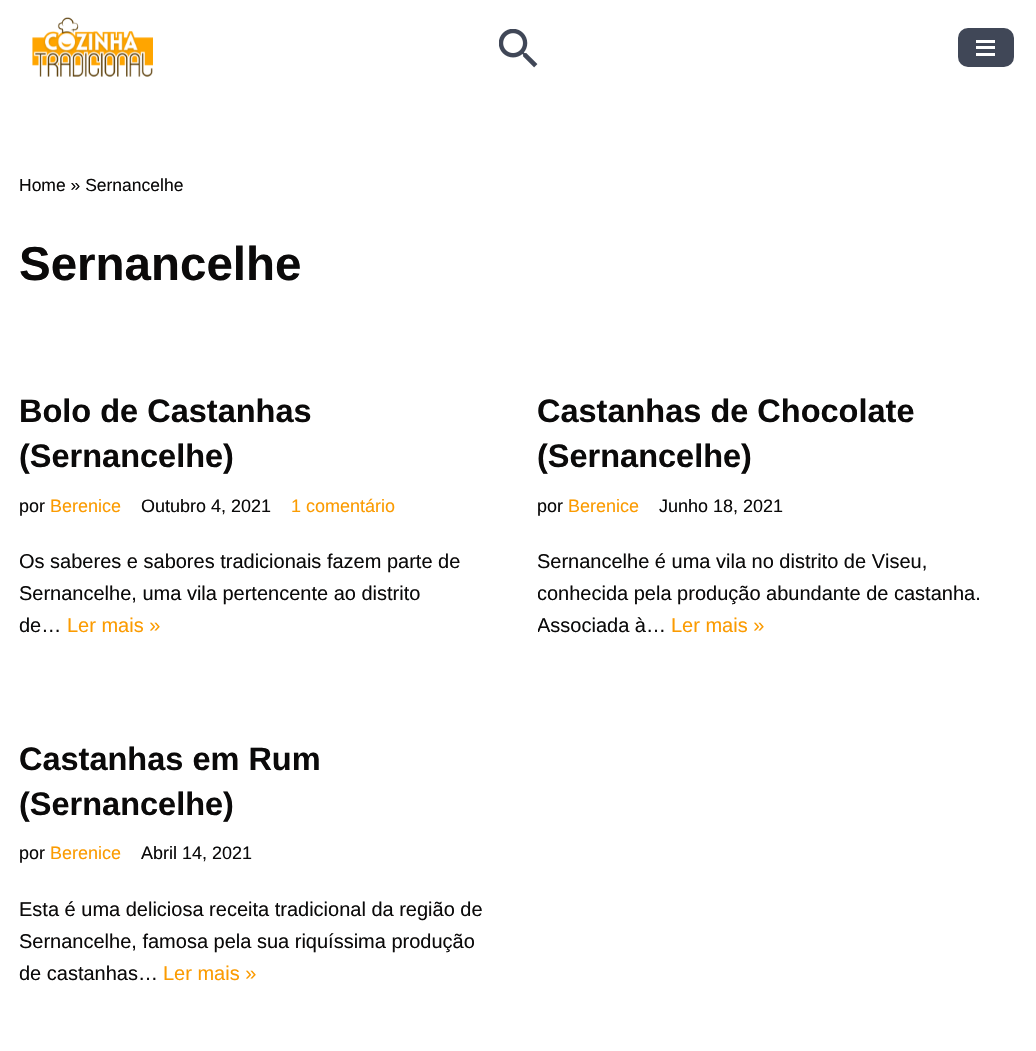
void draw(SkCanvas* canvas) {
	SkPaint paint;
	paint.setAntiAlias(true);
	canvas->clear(0xffffffff);
	canvas->drawImageRect(SkImages::DeferredFromEncodedData(SkData::MakeFromFileName("img1.png")), SkRect::MakeXYWH(32, 17, 121, 60), SkSamplingOptions());
	canvas->drawImageRect(SkImages::DeferredFromEncodedData(SkData::MakeFromFileName("img2.png")), SkRect::MakeXYWH(499, 29, 39, 39), SkSamplingOptions());
	paint.setColor(0xff404757);
	canvas->drawRoundRect(SkRect::MakeXYWH(956, 26, 60, 43), 12, 12, paint);
	paint.setStroke(true);
	paint.setStrokeWidth(4);
	paint.setColor(0xffffffff);
	canvas->drawRoundRect(SkRect::MakeXYWH(956, 26, 60, 43), 12, 12, paint);
	paint.setStroke(false);
	canvas->drawRect(SkRect::MakeXYWH(976, 40, 19, 3), paint);
	canvas->drawRect(SkRect::MakeXYWH(976, 46, 19, 3), paint);
	canvas->drawRect(SkRect::MakeXYWH(976, 53, 19, 3), paint);
	SkFont f1(fontMgr->matchFamilyStyle("Liberation Sans", SkFontStyle::Normal()), 17.5);
	f1.setSubpixel(true);
	paint.setColor(0xff0b0a0a);
	canvas->drawString("Home » Sernancelhe", 19, 191, f1, paint);
	SkFont f2(fontMgr->matchFamilyStyle("Liberation Sans", SkFontStyle::Bold()), 47.5);
	f2.setSubpixel(true);
	canvas->drawString("Sernancelhe", 19, 280, f2, paint);
	SkFont f3(fontMgr->matchFamilyStyle("Liberation Sans", SkFontStyle::Bold()), 32.5);
	f3.setSubpixel(true);
	canvas->drawString("Bolo de Castanhas", 19, 422, f3, paint);
	canvas->drawString("(Sernancelhe)", 19, 467, f3, paint);
	SkFont f4(fontMgr->matchFamilyStyle("Liberation Sans", SkFontStyle::Normal()), 18);
	f4.setSubpixel(true);
	canvas->drawString("por", 19, 512, f4, paint);
	paint.setColor(0xfffb9b01);
	canvas->drawString("Berenice", 50, 512, f4, paint);
	paint.setColor(0xff0b0a0a);
	canvas->drawString("Outubro 4, 2021", 141, 512, f4, paint);
	paint.setColor(0xfffb9b01);
	canvas->drawString("1 comentário", 291, 512, f4, paint);
	SkFont f5(fontMgr->matchFamilyStyle("Liberation Sans", SkFontStyle::Normal()), 20);
	f5.setSubpixel(true);
	paint.setColor(0xff0b0a0a);
	canvas->drawString("Os saberes e sabores tradicionais fazem parte de", 19, 568, f5, paint);
	canvas->drawString("Sernancelhe, uma vila pertencente ao distrito", 19, 600, f5, paint);
	canvas->drawString("de…", 19, 632, f5, paint);
	paint.setColor(0xfffb9b01);
	canvas->drawString("Ler mais »", 67, 632, f5, paint);
	paint.setColor(0xff0b0a0a);
	canvas->drawString("Castanhas de Chocolate", 537, 422, f3, paint);
	canvas->drawString("(Sernancelhe)", 537, 467, f3, paint);
	canvas->drawString("por", 537, 512, f4, paint);
	paint.setColor(0xfffb9b01);
	canvas->drawString("Berenice", 568, 512, f4, paint);
	paint.setColor(0xff0b0a0a);
	canvas->drawString("Junho 18, 2021", 659, 512, f4, paint);
	canvas->drawString("Sernancelhe é uma vila no distrito de Viseu,", 537, 568, f5, paint);
	canvas->save();
	canvas->clipRect(SkRect::MakeXYWH(538, 331, 480, 310));
	canvas->drawString("conhecida pela produção abundante de castanha.", 537, 600, f5, paint);
	canvas->drawString("Associada à…", 537, 632, f5, paint);
	canvas->restore();
	paint.setColor(0xfffb9b01);
	canvas->drawString("Ler mais »", 671, 632, f5, paint);
	paint.setColor(0xff0b0a0a);
	canvas->drawString("Castanhas em Rum", 19, 770, f3, paint);
	canvas->drawString("(Sernancelhe)", 19, 815, f3, paint);
	canvas->drawString("por", 19, 859, f4, paint);
	paint.setColor(0xfffb9b01);
	canvas->drawString("Berenice", 50, 859, f4, paint);
	paint.setColor(0xff0b0a0a);
	canvas->drawString("Abril 14, 2021", 141, 859, f4, paint);
	canvas->drawString("Esta é uma deliciosa receita tradicional da região de", 19, 916, f5, paint);
	canvas->drawString("Sernancelhe, famosa pela sua riquíssima produção", 19, 948, f5, paint);
	canvas->drawString("de castanhas…", 19, 980, f5, paint);
	paint.setColor(0xfffb9b01);
	canvas->drawString("Ler mais »", 163, 980, f5, paint);
}
